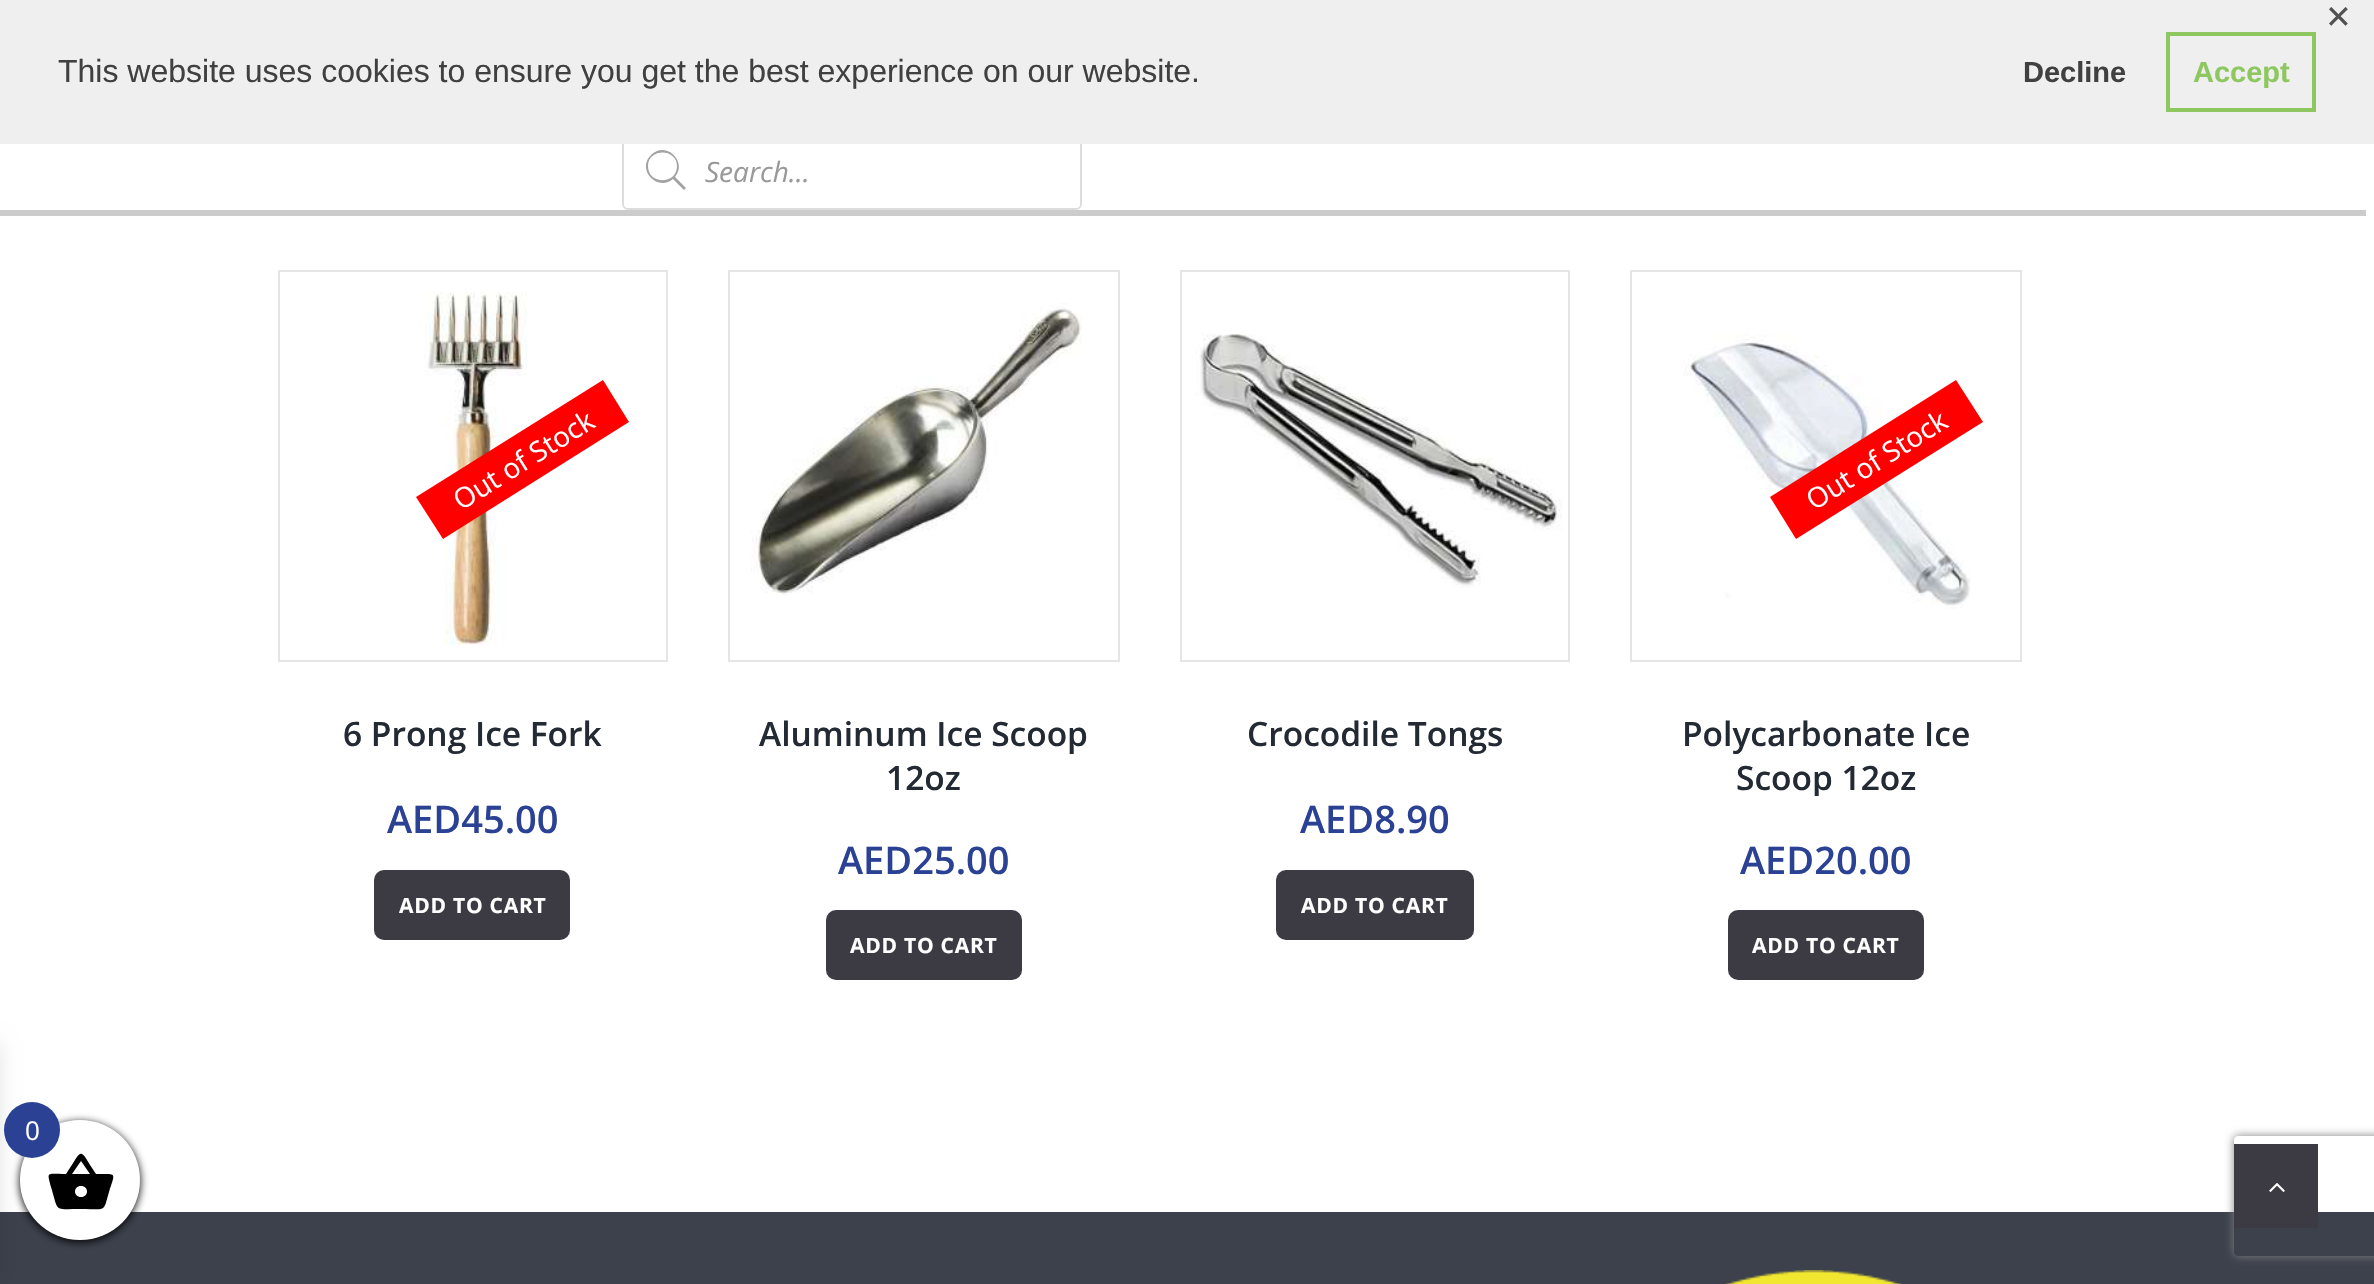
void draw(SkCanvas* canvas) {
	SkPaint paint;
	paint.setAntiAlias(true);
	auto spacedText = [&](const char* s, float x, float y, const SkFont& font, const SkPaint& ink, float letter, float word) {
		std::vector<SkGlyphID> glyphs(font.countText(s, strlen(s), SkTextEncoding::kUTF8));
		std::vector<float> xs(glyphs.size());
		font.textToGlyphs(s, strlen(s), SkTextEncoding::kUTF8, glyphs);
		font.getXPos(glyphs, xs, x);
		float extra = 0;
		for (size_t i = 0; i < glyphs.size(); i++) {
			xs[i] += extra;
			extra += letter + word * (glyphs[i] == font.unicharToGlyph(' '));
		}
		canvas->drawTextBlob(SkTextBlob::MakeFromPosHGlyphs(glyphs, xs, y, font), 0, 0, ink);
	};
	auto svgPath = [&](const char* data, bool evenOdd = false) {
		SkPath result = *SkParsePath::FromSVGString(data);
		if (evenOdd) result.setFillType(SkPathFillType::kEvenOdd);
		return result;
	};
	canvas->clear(0xffffffff);
	paint.setStroke(true);
	paint.setStrokeWidth(2);
	paint.setColor(0xffdddddd);
	canvas->drawRoundRect(SkRect::MakeXYWH(623, 131, 458, 78), 5, 5, paint);
	paint.setStroke(false);
	paint.setColor(0xffefefef);
	canvas->drawRect(SkRect::MakeXYWH(0, 0, 2374, 144), paint);
	SkFont f1(fontMgr->matchFamilyStyle("DejaVu Sans", SkFontStyle::Normal()), 32);
	f1.setSubpixel(true);
	paint.setColor(0xff525252);
	canvas->drawString("✕", 2325, 28, f1, paint);
	SkFont f2(fontMgr->matchFamilyStyle("Liberation Sans", SkFontStyle::Normal()), 32);
	f2.setSubpixel(true);
	paint.setColor(0xff404040);
	canvas->drawString("This website uses cookies to ensure you get the best experience on our website.", 58, 82, f2, paint);
	SkFont f3(fontMgr->matchFamilyStyle("Liberation Sans", SkFontStyle::Bold()), 29);
	f3.setSubpixel(true);
	canvas->drawString("Decline", 2023, 82, f3, paint);
	paint.setStroke(true);
	paint.setStrokeWidth(4);
	paint.setColor(0xff8ec760);
	canvas->drawRect(SkRect::MakeXYWH(2168, 34, 146, 76), paint);
	paint.setStroke(false);
	canvas->drawString("Accept", 2193, 82, f3, paint);
	paint.setColor(0xffcccccc);
	canvas->drawPath(svgPath("M-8 6V216H2366V210H0V6Z"), paint);
	paint.setColor(0xffa2a2a2);
	canvas->drawPath(svgPath("M686 188L675 177C688 162 666 140 651 155C636 170 658 192 673 179L684 190ZM648 166C648 148 677 148 677 166C677 185 648 185 648 166Z"), paint);
	SkFont f4(fontMgr->matchFamilyStyle("Open Sans", SkFontStyle::Italic()), 28);
	f4.setSubpixel(true);
	paint.setColor(0xff999999);
	canvas->drawString("Search...", 705, 182, f4, paint);
	paint.setStroke(true);
	paint.setStrokeWidth(2);
	paint.setColor(0xffe5e5e5);
	canvas->drawRect(SkRect::MakeXYWH(279, 271, 388, 390), paint);
	canvas->drawImageRect(SkImages::DeferredFromEncodedData(SkData::MakeFromFileName("img1.png")), SkRect::MakeXYWH(424, 292, 103, 353), SkSamplingOptions());
	paint.setStroke(false);
	paint.setColor(0xffff0000);
	canvas->drawPath(svgPath("M416 497L603 380L629 422L443 539Z"), paint);
	SkFont f5(fontMgr->matchFamilyStyle("Open Sans", SkFontStyle::Normal()), 28);
	f5.setSubpixel(true);
	paint.setColor(0xffffffff);
	canvas->save();
	canvas->rotate(-32, 461, 511);
	canvas->drawString("Out of Stock", 461, 511, f5, paint);
	canvas->restore();
	SkFont f6(fontMgr->matchFamilyStyle("Open Sans", SkFontStyle(600, SkFontStyle::kNormal_Width, SkFontStyle::kUpright_Slant)), 33.5);
	f6.setSubpixel(true);
	paint.setColor(0xff232a34);
	canvas->drawString("6 Prong Ice Fork", 343, 746, f6, paint);
	SkFont f7(fontMgr->matchFamilyStyle("Open Sans", SkFontStyle(600, SkFontStyle::kNormal_Width, SkFontStyle::kUpright_Slant)), 38);
	f7.setSubpixel(true);
	paint.setColor(0xff2b4194);
	canvas->drawString("AED45.00", 387, 833, f7, paint);
	paint.setColor(0xff3c3b43);
	canvas->drawRoundRect(SkRect::MakeXYWH(374, 870, 196, 70), 10, 10, paint);
	SkFont f8(fontMgr->matchFamilyStyle("Open Sans", SkFontStyle::Bold()), 21);
	f8.setSubpixel(true);
	paint.setColor(0xffffffff);
	spacedText("ADD TO CART", 399, 913, f8, paint, 0.75, 0);
	paint.setStroke(true);
	paint.setColor(0xffe5e5e5);
	canvas->drawRect(SkRect::MakeXYWH(729, 271, 390, 390), paint);
	canvas->drawImageRect(SkImages::DeferredFromEncodedData(SkData::MakeFromFileName("img2.png")), SkRect::MakeXYWH(751, 303, 331, 292), SkSamplingOptions());
	paint.setStroke(false);
	paint.setColor(0xff232a34);
	canvas->drawString("Aluminum Ice Scoop", 759, 746, f6, paint);
	canvas->drawString("12oz", 886, 790, f6, paint);
	paint.setColor(0xff2b4194);
	canvas->drawString("AED25.00", 838, 874, f7, paint);
	paint.setColor(0xff3c3b43);
	canvas->drawRoundRect(SkRect::MakeXYWH(826, 910, 196, 70), 10, 10, paint);
	paint.setColor(0xffffffff);
	spacedText("ADD TO CART", 850, 953, f8, paint, 0.75, 0);
	paint.setStroke(true);
	paint.setColor(0xffe5e5e5);
	canvas->drawRect(SkRect::MakeXYWH(1181, 271, 388, 390), paint);
	canvas->drawImageRect(SkImages::DeferredFromEncodedData(SkData::MakeFromFileName("img3.png")), SkRect::MakeXYWH(1195, 334, 368, 254), SkSamplingOptions());
	paint.setStroke(false);
	paint.setColor(0xff232a34);
	canvas->drawString("Crocodile Tongs", 1247, 746, f6, paint);
	paint.setColor(0xff2b4194);
	canvas->drawString("AED8.90", 1300, 833, f7, paint);
	paint.setColor(0xff3c3b43);
	canvas->drawRoundRect(SkRect::MakeXYWH(1276, 870, 198, 70), 10, 10, paint);
	paint.setColor(0xffffffff);
	spacedText("ADD TO CART", 1301, 913, f8, paint, 0.75, 0);
	paint.setStroke(true);
	paint.setColor(0xffe5e5e5);
	canvas->drawRect(SkRect::MakeXYWH(1631, 271, 390, 390), paint);
	canvas->drawImageRect(SkImages::DeferredFromEncodedData(SkData::MakeFromFileName("img4.png")), SkRect::MakeXYWH(1684, 334, 287, 275), SkSamplingOptions());
	paint.setStroke(false);
	paint.setColor(0xffff0000);
	canvas->drawPath(svgPath("M1770 497L1956 380L1983 422L1796 539Z"), paint);
	paint.setColor(0xffffffff);
	canvas->save();
	canvas->rotate(-32, 1814, 511);
	canvas->drawString("Out of Stock", 1814, 511, f5, paint);
	canvas->restore();
	paint.setColor(0xff232a34);
	canvas->drawString("Polycarbonate Ice", 1682, 746, f6, paint);
	canvas->save();
	canvas->clipRect(SkRect::MakeXYWH(1630, 712, 392, 84));
	canvas->drawString("Scoop 12oz", 1736, 790, f6, paint);
	canvas->restore();
	paint.setColor(0xff2b4194);
	canvas->drawString("AED20.00", 1740, 874, f7, paint);
	paint.setColor(0xff3c3b43);
	canvas->drawRoundRect(SkRect::MakeXYWH(1728, 910, 196, 70), 10, 10, paint);
	paint.setColor(0xffffffff);
	spacedText("ADD TO CART", 1752, 953, f8, paint, 0.75, 0);
	paint.setColor(0xff3c414c);
	canvas->drawRect(SkRect::MakeXYWH(0, 1212, 2374, 72), paint);
	canvas->drawImageRect(SkImages::DeferredFromEncodedData(SkData::MakeFromFileName("img5.png")), SkRect::MakeXYWH(1724, 1270, 179, 14), SkSamplingOptions());
	paint.setColor(0x1a000000);
	paint.setMaskFilter(SkMaskFilter::MakeBlur(kNormal_SkBlurStyle, 10));
	canvas->drawRect(SkRect::MakeXYWH(-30, 1044, 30, 230), paint);
	paint.setMaskFilter(nullptr);
	paint.setColor(0xff000000);
	paint.setMaskFilter(SkMaskFilter::MakeBlur(kNormal_SkBlurStyle, 4));
	canvas->drawRoundRect(SkRect::MakeXYWH(20, 1122, 120, 120), 60, 60, paint);
	paint.setMaskFilter(nullptr);
	paint.setColor(0xffffffff);
	canvas->drawCircle(80, 1180, 60, paint);
	paint.setColor(0xff000000);
	canvas->drawPath(svgPath("M81 1197C89 1197 89 1186 81 1186C73 1186 73 1197 81 1197ZM72 1174H90L81 1161ZM96 1174C118 1174 115 1172 109 1192C103 1213 107 1209 81 1209C53 1209 59 1213 51 1187C47 1171 46 1174 66 1174C84 1147 78 1147 96 1174Z"), paint);
	paint.setColor(0xff2b4194);
	canvas->drawCircle(32, 1130, 28, paint);
	SkFont f9(fontMgr->matchFamilyStyle("Open Sans", SkFontStyle::Normal()), 26);
	f9.setSubpixel(true);
	paint.setColor(0xffffffff);
	canvas->drawString("0", 25, 1140, f9, paint);
	canvas->save();
	canvas->clipPath(svgPath("M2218 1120H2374V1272H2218ZM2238 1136H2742C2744 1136 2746 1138 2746 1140V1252C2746 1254 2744 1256 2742 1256H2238C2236 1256 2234 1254 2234 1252V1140C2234 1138 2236 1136 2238 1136Z", true), true);
	paint.setColor(0xff808080);
	paint.setMaskFilter(SkMaskFilter::MakeBlur(kNormal_SkBlurStyle, 5));
	canvas->drawRoundRect(SkRect::MakeXYWH(2234, 1136, 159, 120), 4, 4, paint);
	paint.setMaskFilter(nullptr);
	canvas->restore();
	paint.setColor(0xff3c3b43);
	canvas->drawRect(SkRect::MakeXYWH(2234, 1144, 84, 84), paint);
	canvas->drawImageRect(SkImages::DeferredFromEncodedData(SkData::MakeFromFileName("img6.png")), SkRect::MakeXYWH(2269, 1183, 16, 9), SkSamplingOptions());
}
